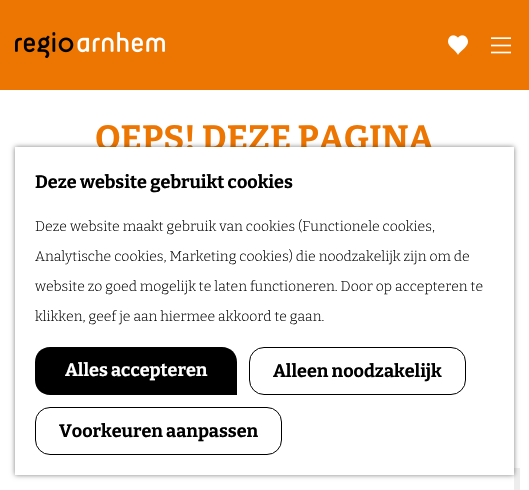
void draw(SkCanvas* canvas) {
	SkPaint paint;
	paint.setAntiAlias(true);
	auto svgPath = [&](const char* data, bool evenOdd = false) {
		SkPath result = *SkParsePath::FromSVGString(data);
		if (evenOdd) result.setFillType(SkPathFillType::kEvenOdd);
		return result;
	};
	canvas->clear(0xffffffff);
	paint.setColor(0xffed7501);
	canvas->drawRect(SkRect::MakeXYWH(0, 0, 529, 90), paint);
	canvas->drawImageRect(SkImages::DeferredFromEncodedData(SkData::MakeFromFileName("img1.png")), SkRect::MakeXYWH(15, 32, 150, 26), SkSamplingOptions());
	canvas->drawImageRect(SkImages::DeferredFromEncodedData(SkData::MakeFromFileName("img2.png")), SkRect::MakeXYWH(448, 35, 20, 20), SkSamplingOptions());
	canvas->drawImageRect(SkImages::DeferredFromEncodedData(SkData::MakeFromFileName("img3.png")), SkRect::MakeXYWH(491, 37, 20, 17), SkSamplingOptions());
	SkFont f1(fontMgr->matchFamilyStyle("Bitter", SkFontStyle(100, SkFontStyle::kNormal_Width, SkFontStyle::kUpright_Slant)), 35);
	f1.setSubpixel(true);
	canvas->drawString("OEPS! DEZE PAGINA", 95, 150, f1, paint);
	paint.setColor(0xffededed);
	canvas->drawPath(svgPath("M21 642V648H520V468H514V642Z"), paint);
	paint.setColor(0x80000000);
	paint.setMaskFilter(SkMaskFilter::MakeBlur(kNormal_SkBlurStyle, 2.5));
	canvas->drawRect(SkRect::MakeXYWH(15, 147, 499, 328), paint);
	paint.setMaskFilter(nullptr);
	paint.setColor(0xffffffff);
	canvas->drawRect(SkRect::MakeXYWH(15, 147, 499, 328), paint);
	SkFont f2(fontMgr->matchFamilyStyle("Bitter", SkFontStyle(100, SkFontStyle::kNormal_Width, SkFontStyle::kUpright_Slant)), 18);
	f2.setSubpixel(true);
	paint.setColor(0xff000000);
	canvas->drawString("Deze website gebruikt cookies", 35, 188, f2, paint);
	SkFont f3(fontMgr->matchFamilyStyle("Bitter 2", SkFontStyle(100, SkFontStyle::kNormal_Width, SkFontStyle::kUpright_Slant)), 14);
	f3.setSubpixel(true);
	canvas->drawString("Deze website maakt gebruik van cookies (Functionele cookies,", 35, 231, f3, paint);
	canvas->drawString("Analytische cookies, Marketing cookies) die noodzakelijk zijn om de", 35, 261, f3, paint);
	canvas->drawString("website zo goed mogelijk te laten functioneren. Door op accepteren te", 35, 291, f3, paint);
	canvas->drawString("klikken, geef je aan hiermee akkoord te gaan.", 35, 321, f3, paint);
	canvas->drawPath(svgPath("M50 347H222C230.5 347 237 353.5 237 362V395H50C41.5 395 35 388.5 35 380V362C35 353.5 41.5 347 50 347Z"), paint);
	paint.setColor(0xffffffff);
	canvas->drawString("Alles accepteren", 65, 376, f2, paint);
	paint.setStroke(true);
	paint.setStrokeWidth(1);
	paint.setColor(0xff000000);
	canvas->drawRoundRect(SkRect::MakeXYWH(249.5, 347.5, 216, 47), 14.5, 14.5, paint);
	paint.setStroke(false);
	canvas->drawString("Alleen noodzakelijk", 273, 377, f2, paint);
	paint.setStroke(true);
	canvas->drawRoundRect(SkRect::MakeXYWH(35.5, 407.5, 246, 47), 14.5, 14.5, paint);
	paint.setStroke(false);
	canvas->drawString("Voorkeuren aanpassen", 59, 437, f2, paint);
}
